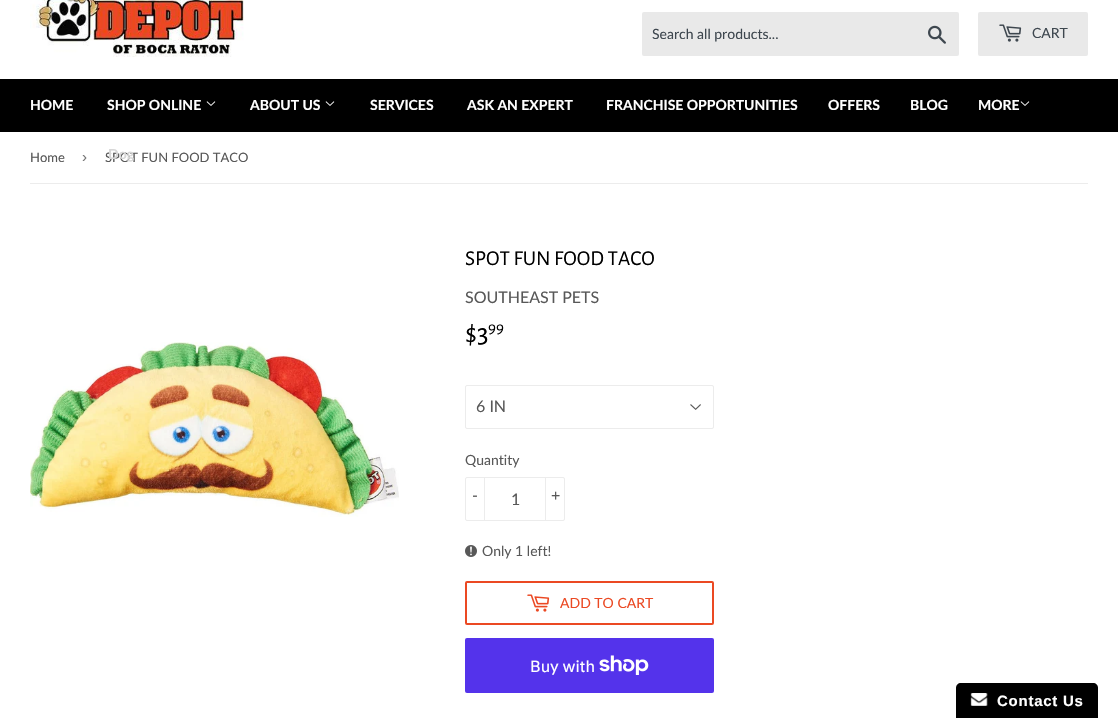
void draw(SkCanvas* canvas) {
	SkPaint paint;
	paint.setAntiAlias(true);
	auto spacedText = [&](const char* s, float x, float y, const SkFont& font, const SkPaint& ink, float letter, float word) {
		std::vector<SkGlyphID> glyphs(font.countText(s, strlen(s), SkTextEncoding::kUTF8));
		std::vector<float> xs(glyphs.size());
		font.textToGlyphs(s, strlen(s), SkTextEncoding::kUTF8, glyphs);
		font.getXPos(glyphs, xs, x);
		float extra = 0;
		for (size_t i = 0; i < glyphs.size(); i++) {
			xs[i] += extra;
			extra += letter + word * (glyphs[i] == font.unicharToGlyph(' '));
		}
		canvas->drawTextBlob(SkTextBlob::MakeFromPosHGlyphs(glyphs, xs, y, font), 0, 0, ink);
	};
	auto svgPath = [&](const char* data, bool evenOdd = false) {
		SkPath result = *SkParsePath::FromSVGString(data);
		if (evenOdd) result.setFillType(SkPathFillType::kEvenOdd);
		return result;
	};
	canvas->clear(0xffffffff);
	canvas->drawImageRect(SkImages::DeferredFromEncodedData(SkData::MakeFromFileName("img1.png")), SkRect::MakeXYWH(30, 0, 214, 57), SkSamplingOptions());
	paint.setColor(0xffe9e9e9);
	canvas->drawRoundRect(SkRect::MakeXYWH(642, 12, 317, 44), 2, 2, paint);
	SkFont f1(fontMgr->matchFamilyStyle("Lato", SkFontStyle::Normal()), 14);
	f1.setSubpixel(true);
	paint.setColor(0xff3e474f);
	canvas->drawString("Search all products...", 652, 39, f1, paint);
	canvas->drawImageRect(SkImages::DeferredFromEncodedData(SkData::MakeFromFileName("img2.png")), SkRect::MakeXYWH(928, 25, 18, 19), SkSamplingOptions());
	paint.setColor(0xffe9e9e9);
	canvas->drawRoundRect(SkRect::MakeXYWH(978, 12, 110, 44), 2, 2, paint);
	canvas->drawImageRect(SkImages::DeferredFromEncodedData(SkData::MakeFromFileName("img3.png")), SkRect::MakeXYWH(999, 24, 23, 18), SkSamplingOptions());
	paint.setColor(0xff3e474f);
	canvas->drawString("CART", 1032, 38, f1, paint);
	paint.setColor(0xff000000);
	canvas->drawRect(SkRect::MakeXYWH(0, 79, 1118, 53), paint);
	SkFont f2(fontMgr->matchFamilyStyle("Lato", SkFontStyle::Bold()), 14);
	f2.setSubpixel(true);
	paint.setColor(0xffffffff);
	canvas->drawString("HOME", 30, 110, f2, paint);
	canvas->drawString("SHOP ONLINE", 107, 110, f2, paint);
	canvas->drawImageRect(SkImages::DeferredFromEncodedData(SkData::MakeFromFileName("img4.png")), SkRect::MakeXYWH(206, 101, 10, 5), SkSamplingOptions());
	SkFont f3(fontMgr->matchFamilyStyle("Lato", SkFontStyle::Normal()), 13);
	f3.setSubpixel(true);
	paint.setColor(0xff585858);
	canvas->drawString("SPOT FUN FOOD TACO", 105, 162, f3, paint);
	paint.setColor(0xffd7d7d7);
	canvas->drawString("Dog", 108, 159, f2, paint);
	paint.setColor(0xffffffff);
	canvas->drawString("ABOUT US", 250, 110, f2, paint);
	canvas->drawImageRect(SkImages::DeferredFromEncodedData(SkData::MakeFromFileName("img4.png")), SkRect::MakeXYWH(325, 101, 10, 5), SkSamplingOptions());
	canvas->drawString("SERVICES", 370, 110, f2, paint);
	canvas->drawString("ASK AN EXPERT", 467, 110, f2, paint);
	canvas->drawString("FRANCHISE OPPORTUNITIES", 606, 110, f2, paint);
	canvas->drawString("OFFERS", 828, 110, f2, paint);
	canvas->drawString("BLOG", 910, 110, f2, paint);
	canvas->drawString("MORE", 978, 110, f2, paint);
	canvas->drawImageRect(SkImages::DeferredFromEncodedData(SkData::MakeFromFileName("img4.png")), SkRect::MakeXYWH(1020, 101, 10, 5), SkSamplingOptions());
	paint.setColor(0xffececec);
	canvas->drawRect(SkRect::MakeXYWH(30, 183, 1058, 1), paint);
	paint.setColor(0xff585858);
	canvas->drawString("Home", 30, 162, f3, paint);
	SkFont f4(fontMgr->matchFamilyStyle("Liberation Sans", SkFontStyle::Normal()), 15);
	f4.setSubpixel(true);
	paint.setColor(0xff767676);
	canvas->drawString("›", 82, 162, f4, paint);
	canvas->drawImageRect(SkImages::DeferredFromEncodedData(SkData::MakeFromFileName("img5.png")), SkRect::MakeXYWH(30, 342, 369, 175), SkSamplingOptions());
	SkFont f5(fontMgr->matchFamilyStyle("Alegreya Sans", SkFontStyle::Normal()), 21.25);
	f5.setSubpixel(true);
	paint.setColor(0xff000000);
	canvas->drawString("SPOT FUN FOOD TACO", 465, 265, f5, paint);
	SkFont f6(fontMgr->matchFamilyStyle("Lato", SkFontStyle::Normal()), 16);
	f6.setSubpixel(true);
	paint.setColor(0xff585858);
	canvas->drawString("SOUTHEAST PETS", 465, 303, f6, paint);
	SkFont f7(fontMgr->matchFamilyStyle("Alegreya Sans", SkFontStyle::Normal()), 28);
	f7.setSubpixel(true);
	paint.setColor(0xff000000);
	canvas->drawString("$3", 465, 342, f7, paint);
	SkFont f8(fontMgr->matchFamilyStyle("Alegreya Sans", SkFontStyle::Normal()), 17);
	f8.setSubpixel(true);
	canvas->drawString("99", 488, 333, f8, paint);
	canvas->drawImageRect(SkImages::DeferredFromEncodedData(SkData::MakeFromFileName("img6.png")), SkRect::MakeXYWH(690, 404, 11, 6), SkSamplingOptions());
	paint.setStroke(true);
	paint.setStrokeWidth(1);
	paint.setColor(0xffececec);
	canvas->drawRoundRect(SkRect::MakeXYWH(465.5, 385.5, 248, 43), 1.5, 1.5, paint);
	paint.setStroke(false);
	paint.setColor(0xff585858);
	canvas->drawString("6 IN", 476, 412, f6, paint);
	canvas->drawString("Quantity", 465, 465, f1, paint);
	paint.setStroke(true);
	paint.setColor(0xffececec);
	canvas->drawRoundRect(SkRect::MakeXYWH(465.5, 477.5, 99, 43), 1.5, 1.5, paint);
	paint.setStroke(false);
	canvas->drawRect(SkRect::MakeXYWH(484, 477, 1, 44), paint);
	paint.setColor(0xff585858);
	canvas->drawString("-", 472, 501, f6, paint);
	canvas->drawString("1", 511, 505, f6, paint);
	paint.setColor(0xffececec);
	canvas->drawRect(SkRect::MakeXYWH(545, 477, 1, 44), paint);
	paint.setColor(0xff585858);
	canvas->drawString("+", 551, 501, f6, paint);
	canvas->drawImageRect(SkImages::DeferredFromEncodedData(SkData::MakeFromFileName("img7.png")), SkRect::MakeXYWH(465, 545, 12, 12), SkSamplingOptions());
	canvas->drawString("Only 1 left!", 482, 556, f1, paint);
	paint.setStroke(true);
	paint.setStrokeWidth(2);
	paint.setColor(0xffeb4923);
	canvas->drawRoundRect(SkRect::MakeXYWH(466, 582, 247, 42), 1, 1, paint);
	canvas->drawImageRect(SkImages::DeferredFromEncodedData(SkData::MakeFromFileName("img8.png")), SkRect::MakeXYWH(527, 594, 23, 18), SkSamplingOptions());
	paint.setStroke(false);
	canvas->drawString("ADD TO CART", 560, 608, f1, paint);
	paint.setColor(0xff5433eb);
	canvas->drawRoundRect(SkRect::MakeXYWH(465, 638, 249, 55), 2, 2, paint);
	SkFont f9(fontMgr->matchFamilyStyle("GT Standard", SkFontStyle::Normal()), 16);
	f9.setSubpixel(true);
	paint.setColor(0xffffffff);
	canvas->drawString("Buy with", 530, 672, f9, paint);
	canvas->drawImageRect(SkImages::DeferredFromEncodedData(SkData::MakeFromFileName("img9.png")), SkRect::MakeXYWH(599, 655, 50, 20), SkSamplingOptions());
	paint.setColor(0xff000000);
	canvas->drawPath(svgPath("M961 683H1093C1096 683 1098 685 1098 688V718H956V688C956 685 958 683 961 683Z"), paint);
	canvas->drawImageRect(SkImages::DeferredFromEncodedData(SkData::MakeFromFileName("img10.png")), SkRect::MakeXYWH(970, 693, 18, 13), SkSamplingOptions());
	SkFont f10(fontMgr->matchFamilyStyle("Liberation Sans", SkFontStyle::Bold()), 15);
	f10.setSubpixel(true);
	paint.setColor(0xffffffff);
	spacedText("Contact Us", 997, 706, f10, paint, 0.75, 0);
}
